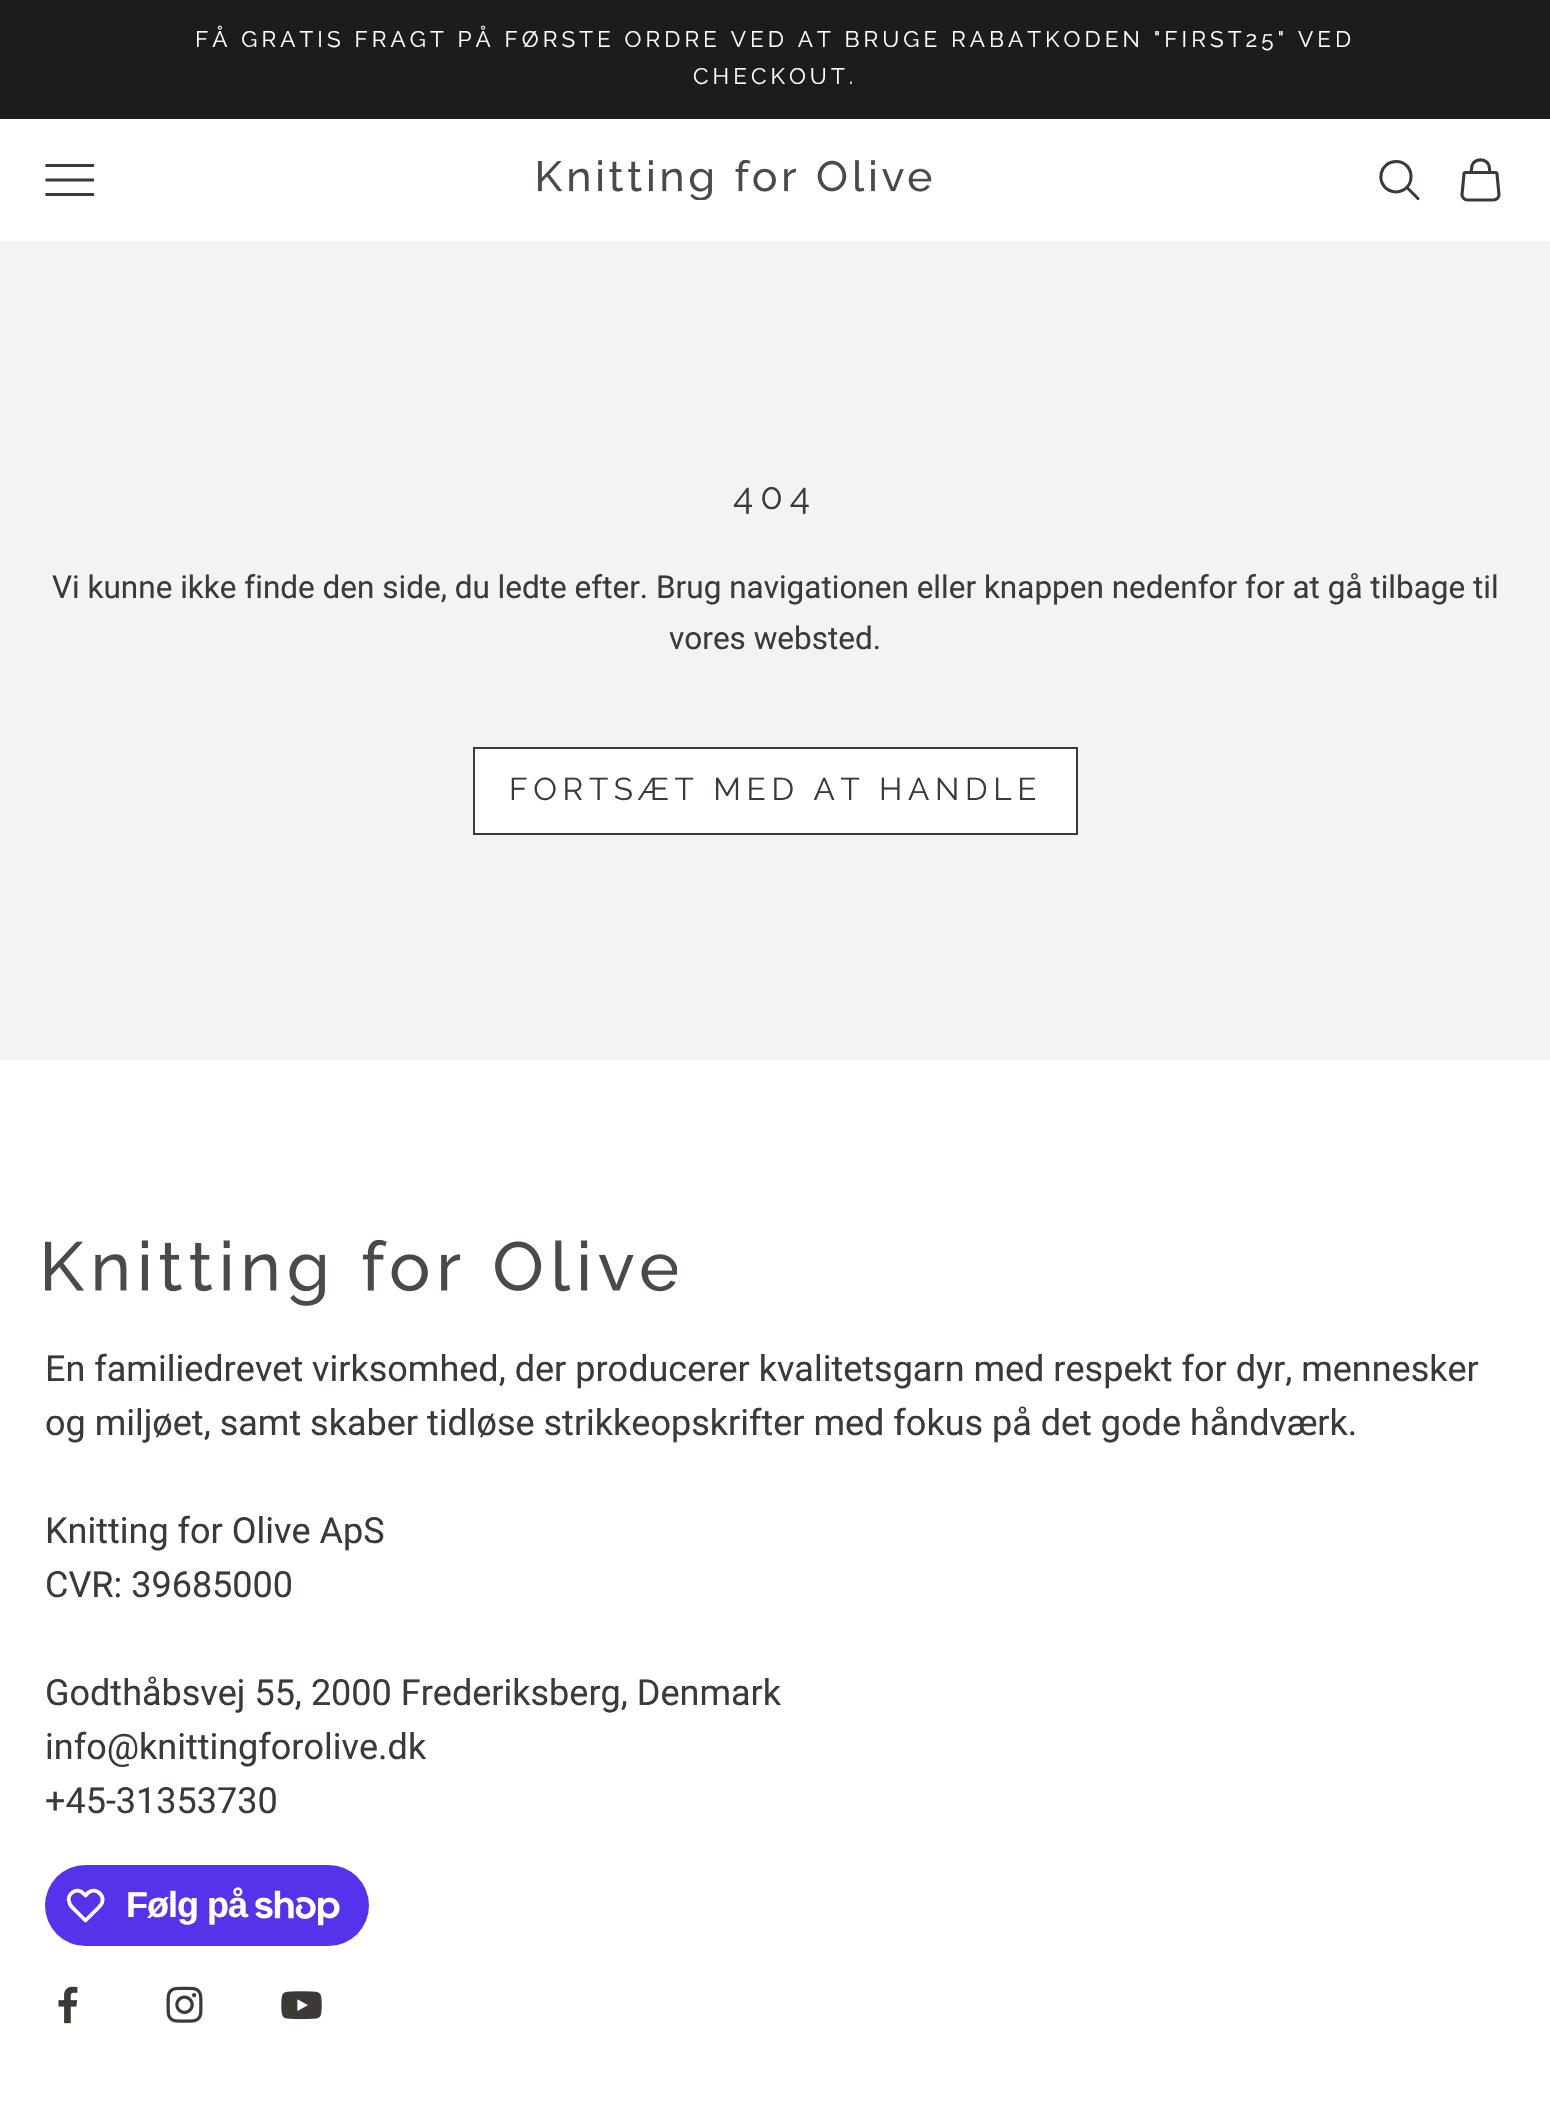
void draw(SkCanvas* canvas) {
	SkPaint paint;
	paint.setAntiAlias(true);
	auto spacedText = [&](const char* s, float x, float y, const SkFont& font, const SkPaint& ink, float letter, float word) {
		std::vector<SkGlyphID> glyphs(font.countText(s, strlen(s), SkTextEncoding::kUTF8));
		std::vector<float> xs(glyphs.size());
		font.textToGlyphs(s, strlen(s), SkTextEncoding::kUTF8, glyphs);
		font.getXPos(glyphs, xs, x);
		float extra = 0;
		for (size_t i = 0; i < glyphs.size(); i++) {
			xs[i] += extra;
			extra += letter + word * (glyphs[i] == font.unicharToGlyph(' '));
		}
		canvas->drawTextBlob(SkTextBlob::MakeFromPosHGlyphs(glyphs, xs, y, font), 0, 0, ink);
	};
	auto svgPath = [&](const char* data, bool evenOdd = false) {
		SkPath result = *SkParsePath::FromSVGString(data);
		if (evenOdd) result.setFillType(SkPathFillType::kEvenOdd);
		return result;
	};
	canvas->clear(0xfff3f3f3);
	paint.setColor(0xff1c1c1c);
	canvas->drawRect(SkRect::MakeXYWH(0, 0, 1550, 119), paint);
	SkFont f1(fontMgr->matchFamilyStyle("Raleway", SkFontStyle::Normal()), 22.5);
	f1.setSubpixel(true);
	paint.setColor(0xffffffff);
	spacedText("FÅ GRATIS FRAGT PÅ FØRSTE ORDRE VED AT BRUGE RABATKODEN \"FIRST25\" VED", 195, 47, f1, paint, 4.05, 0);
	spacedText("CHECKOUT.", 693, 84, f1, paint, 4.05, 0);
	canvas->drawRect(SkRect::MakeXYWH(0, 119, 1550, 122), paint);
	paint.setStroke(true);
	paint.setStrokeWidth(3.1);
	paint.setStrokeCap(SkPaint::kSquare_Cap);
	paint.setColor(0xff3d3a35);
	canvas->drawPath(svgPath("M47 194.5H92.5M47 180H92.5M47 165.5H92.5"), paint);
	canvas->drawImageRect(SkImages::DeferredFromEncodedData(SkData::MakeFromFileName("img1.png")), SkRect::MakeXYWH(538, 160, 394, 40), SkSamplingOptions());
	paint.setStrokeCap(SkPaint::kButt_Cap);
	canvas->drawPath(svgPath("M1396 161.5C1380.5 161.5 1375 182 1388.5 190C1390.5 191 1393.5 192 1396 192C1416.5 191 1415.5 161.5 1396 161.5Z"), paint);
	paint.setStrokeCap(SkPaint::kRound_Cap);
	canvas->drawPath(svgPath("M1407.5 188L1418 198.5"), paint);
	paint.setStrokeJoin(SkPaint::kRound_Join);
	canvas->drawPath(svgPath("M1465.5 172.5C1464.5 172.5 1464 173 1464 174L1462 194.5C1462 197.5 1464.5 200 1467.5 200H1493.5C1496.5 200 1499 197.5 1499 195L1497 174C1497 173 1496.5 172.5 1495.5 172.5ZM1471 172.5L1472 165.5C1475 158 1486 158 1489 165.5L1490 172.5"), paint);
	SkFont f2(fontMgr->matchFamilyStyle("Raleway", SkFontStyle::Normal()), 37);
	f2.setSubpixel(true);
	paint.setStroke(false);
	spacedText("404", 733, 509, f2, paint, 7, 0);
	SkFont f3(fontMgr->matchFamilyStyle("Roboto", SkFontStyle::Normal()), 31.5);
	f3.setSubpixel(true);
	canvas->drawString("Vi kunne ikke finde den side, du ledte efter. Brug navigationen eller knappen nedenfor for at gå tilbage til", 52, 598, f3, paint);
	canvas->drawString("vores websted.", 669, 649, f3, paint);
	paint.setColor(0xffffffff);
	canvas->drawRect(SkRect::MakeXYWH(474, 748, 603, 86), paint);
	paint.setStroke(true);
	paint.setStrokeWidth(2);
	paint.setStrokeCap(SkPaint::kButt_Cap);
	paint.setStrokeJoin(SkPaint::kMiter_Join);
	paint.setColor(0xff3d3a35);
	canvas->drawRect(SkRect::MakeXYWH(474, 748, 603, 86), paint);
	SkFont f4(fontMgr->matchFamilyStyle("Raleway", SkFontStyle::Normal()), 31.5);
	f4.setSubpixel(true);
	paint.setStroke(false);
	spacedText("FORTSÆT MED AT HANDLE", 509, 800, f4, paint, 5.7, 0);
	paint.setColor(0xffffffff);
	canvas->drawRect(SkRect::MakeXYWH(0, 1060, 1550, 1067), paint);
	canvas->drawImageRect(SkImages::DeferredFromEncodedData(SkData::MakeFromFileName("img2.png")), SkRect::MakeXYWH(45, 1240, 632, 66), SkSamplingOptions());
	SkFont f5(fontMgr->matchFamilyStyle("Roboto", SkFontStyle::Normal()), 36);
	f5.setSubpixel(true);
	paint.setColor(0xff3d3a35);
	canvas->drawString("En familiedrevet virksomhed, der producerer kvalitetsgarn med respekt for dyr, mennesker", 45, 1381, f5, paint);
	canvas->drawString("og miljøet, samt skaber tidløse strikkeopskrifter med fokus på det gode håndværk.", 45, 1435, f5, paint);
	canvas->drawString("Knitting for Olive ApS", 45, 1543, f5, paint);
	canvas->drawString("CVR: 39685000", 45, 1597, f5, paint);
	canvas->drawString("Godthåbsvej 55, 2000 Frederiksberg, Denmark", 45, 1705, f5, paint);
	canvas->drawString("info@knittingforolive.dk", 45, 1759, f5, paint);
	canvas->drawString("+45-31353730", 45, 1813, f5, paint);
	paint.setColor(0xff5433eb);
	canvas->drawRoundRect(SkRect::MakeXYWH(45, 1865, 324, 81), 40.5, 40.5, paint);
	paint.setStroke(true);
	paint.setStrokeWidth(3.8);
	paint.setStrokeJoin(SkPaint::kRound_Join);
	paint.setColor(0xffffffff);
	canvas->drawPath(svgPath("M83.5 1893.5L85.5 1895.5C87 1893.5 88.5 1892 91 1891C98 1889 104.5 1896 102 1903C100.5 1906 97.5 1908.5 95 1911L85.5 1920.5L76 1911C73.5 1908.5 70.5 1906.5 69.5 1903C65.5 1894 77 1886.5 83.5 1893.5Z"), paint);
	SkFont f6(fontMgr->matchFamilyStyle("Liberation Sans", SkFontStyle::Bold()), 36);
	f6.setSubpixel(true);
	paint.setStroke(false);
	spacedText("Følg på", 126, 1917, f6, paint, -1, 0);
	canvas->drawImageRect(SkImages::DeferredFromEncodedData(SkData::MakeFromFileName("img3.png")), SkRect::MakeXYWH(255, 1890, 85, 36), SkSamplingOptions());
	canvas->drawImageRect(SkImages::DeferredFromEncodedData(SkData::MakeFromFileName("img4.png")), SkRect::MakeXYWH(58, 1986, 20, 38), SkSamplingOptions());
	canvas->drawImageRect(SkImages::DeferredFromEncodedData(SkData::MakeFromFileName("img5.png")), SkRect::MakeXYWH(166, 1986, 37, 37), SkSamplingOptions());
	canvas->drawImageRect(SkImages::DeferredFromEncodedData(SkData::MakeFromFileName("img6.png")), SkRect::MakeXYWH(281, 1991, 41, 29), SkSamplingOptions());
}
